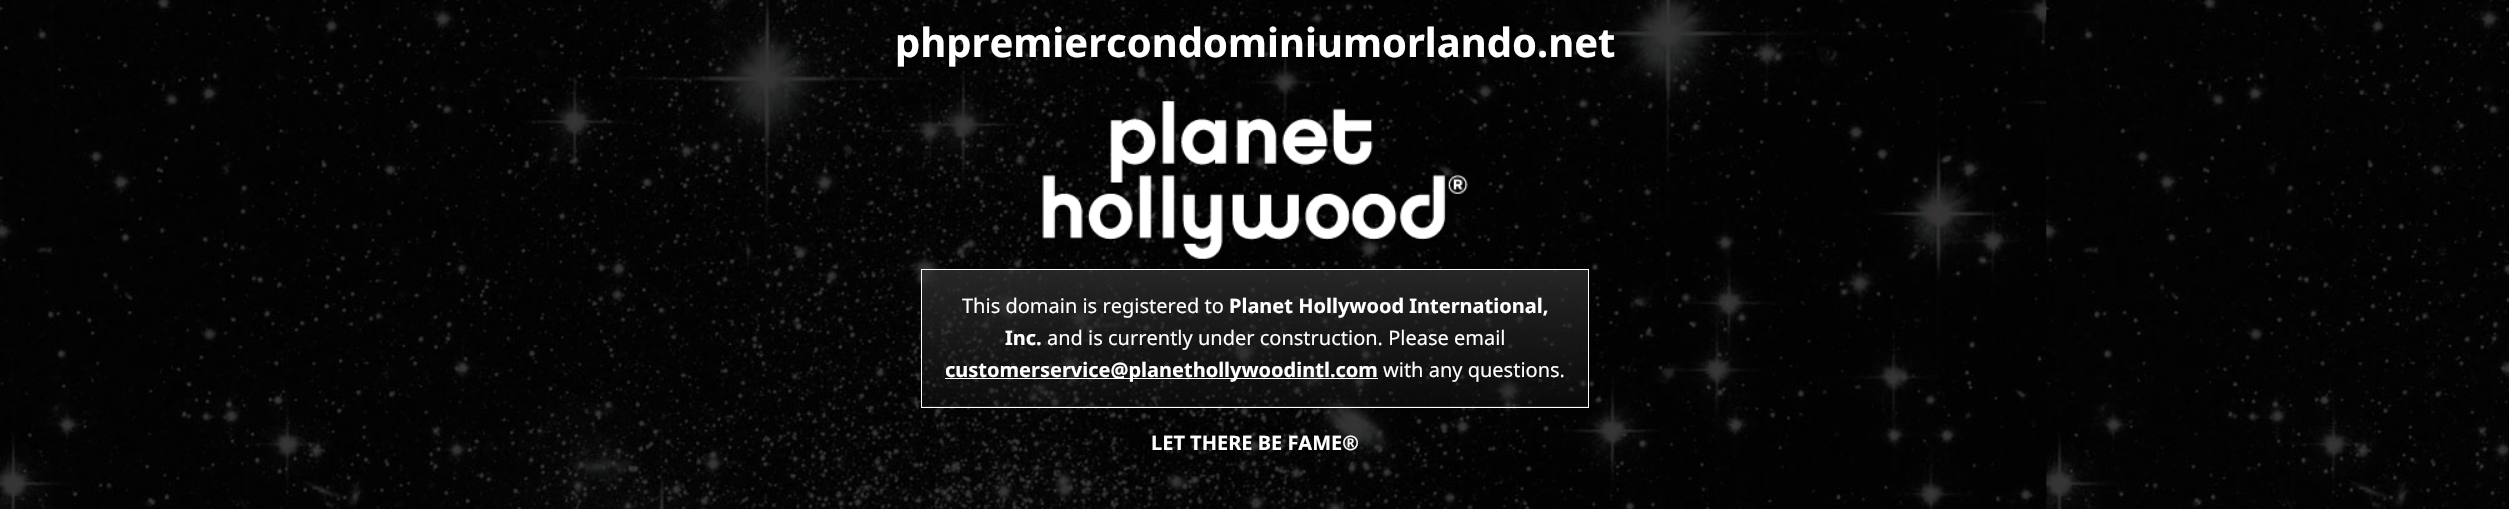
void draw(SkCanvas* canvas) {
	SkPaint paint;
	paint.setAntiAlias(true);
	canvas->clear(0xffffffff);
	canvas->drawImageRect(SkImages::DeferredFromEncodedData(SkData::MakeFromFileName("img1.png")), SkRect::MakeXYWH(0, 0, 2509, 509), SkSamplingOptions());
	SkFont f1(fontMgr->matchFamilyStyle("Noto Sans", SkFontStyle::Bold()), 40);
	f1.setSubpixel(true);
	paint.setColor(0xffffffff);
	canvas->drawString("phpremiercondominiumorlando.net", 895, 57, f1, paint);
	canvas->drawImageRect(SkImages::DeferredFromEncodedData(SkData::MakeFromFileName("img2.png")), SkRect::MakeXYWH(1042, 101, 426, 158), SkSamplingOptions());
	paint.setStroke(true);
	paint.setStrokeWidth(1);
	canvas->drawRect(SkRect::MakeXYWH(921.5, 269.5, 667, 138), paint);
	SkFont f2(fontMgr->matchFamilyStyle("Noto Sans", SkFontStyle::Normal()), 20);
	f2.setSubpixel(true);
	paint.setStroke(false);
	canvas->drawString("This domain is registered to", 962, 313, f2, paint);
	SkFont f3(fontMgr->matchFamilyStyle("Noto Sans", SkFontStyle::Bold()), 20);
	f3.setSubpixel(true);
	canvas->drawString("Planet Hollywood International,", 1229, 313, f3, paint);
	canvas->drawString("Inc.", 1005, 345, f3, paint);
	canvas->drawString("and is currently under construction. Please email", 1047, 345, f2, paint);
	canvas->drawRect(SkRect::MakeXYWH(945, 378, 433, 1), paint);
	canvas->drawString("customerservice@planethollywoodintl.com", 945, 377, f3, paint);
	canvas->drawString("with any questions.", 1383, 377, f2, paint);
	canvas->drawString("LET THERE BE FAME®", 1151, 450, f3, paint);
}
